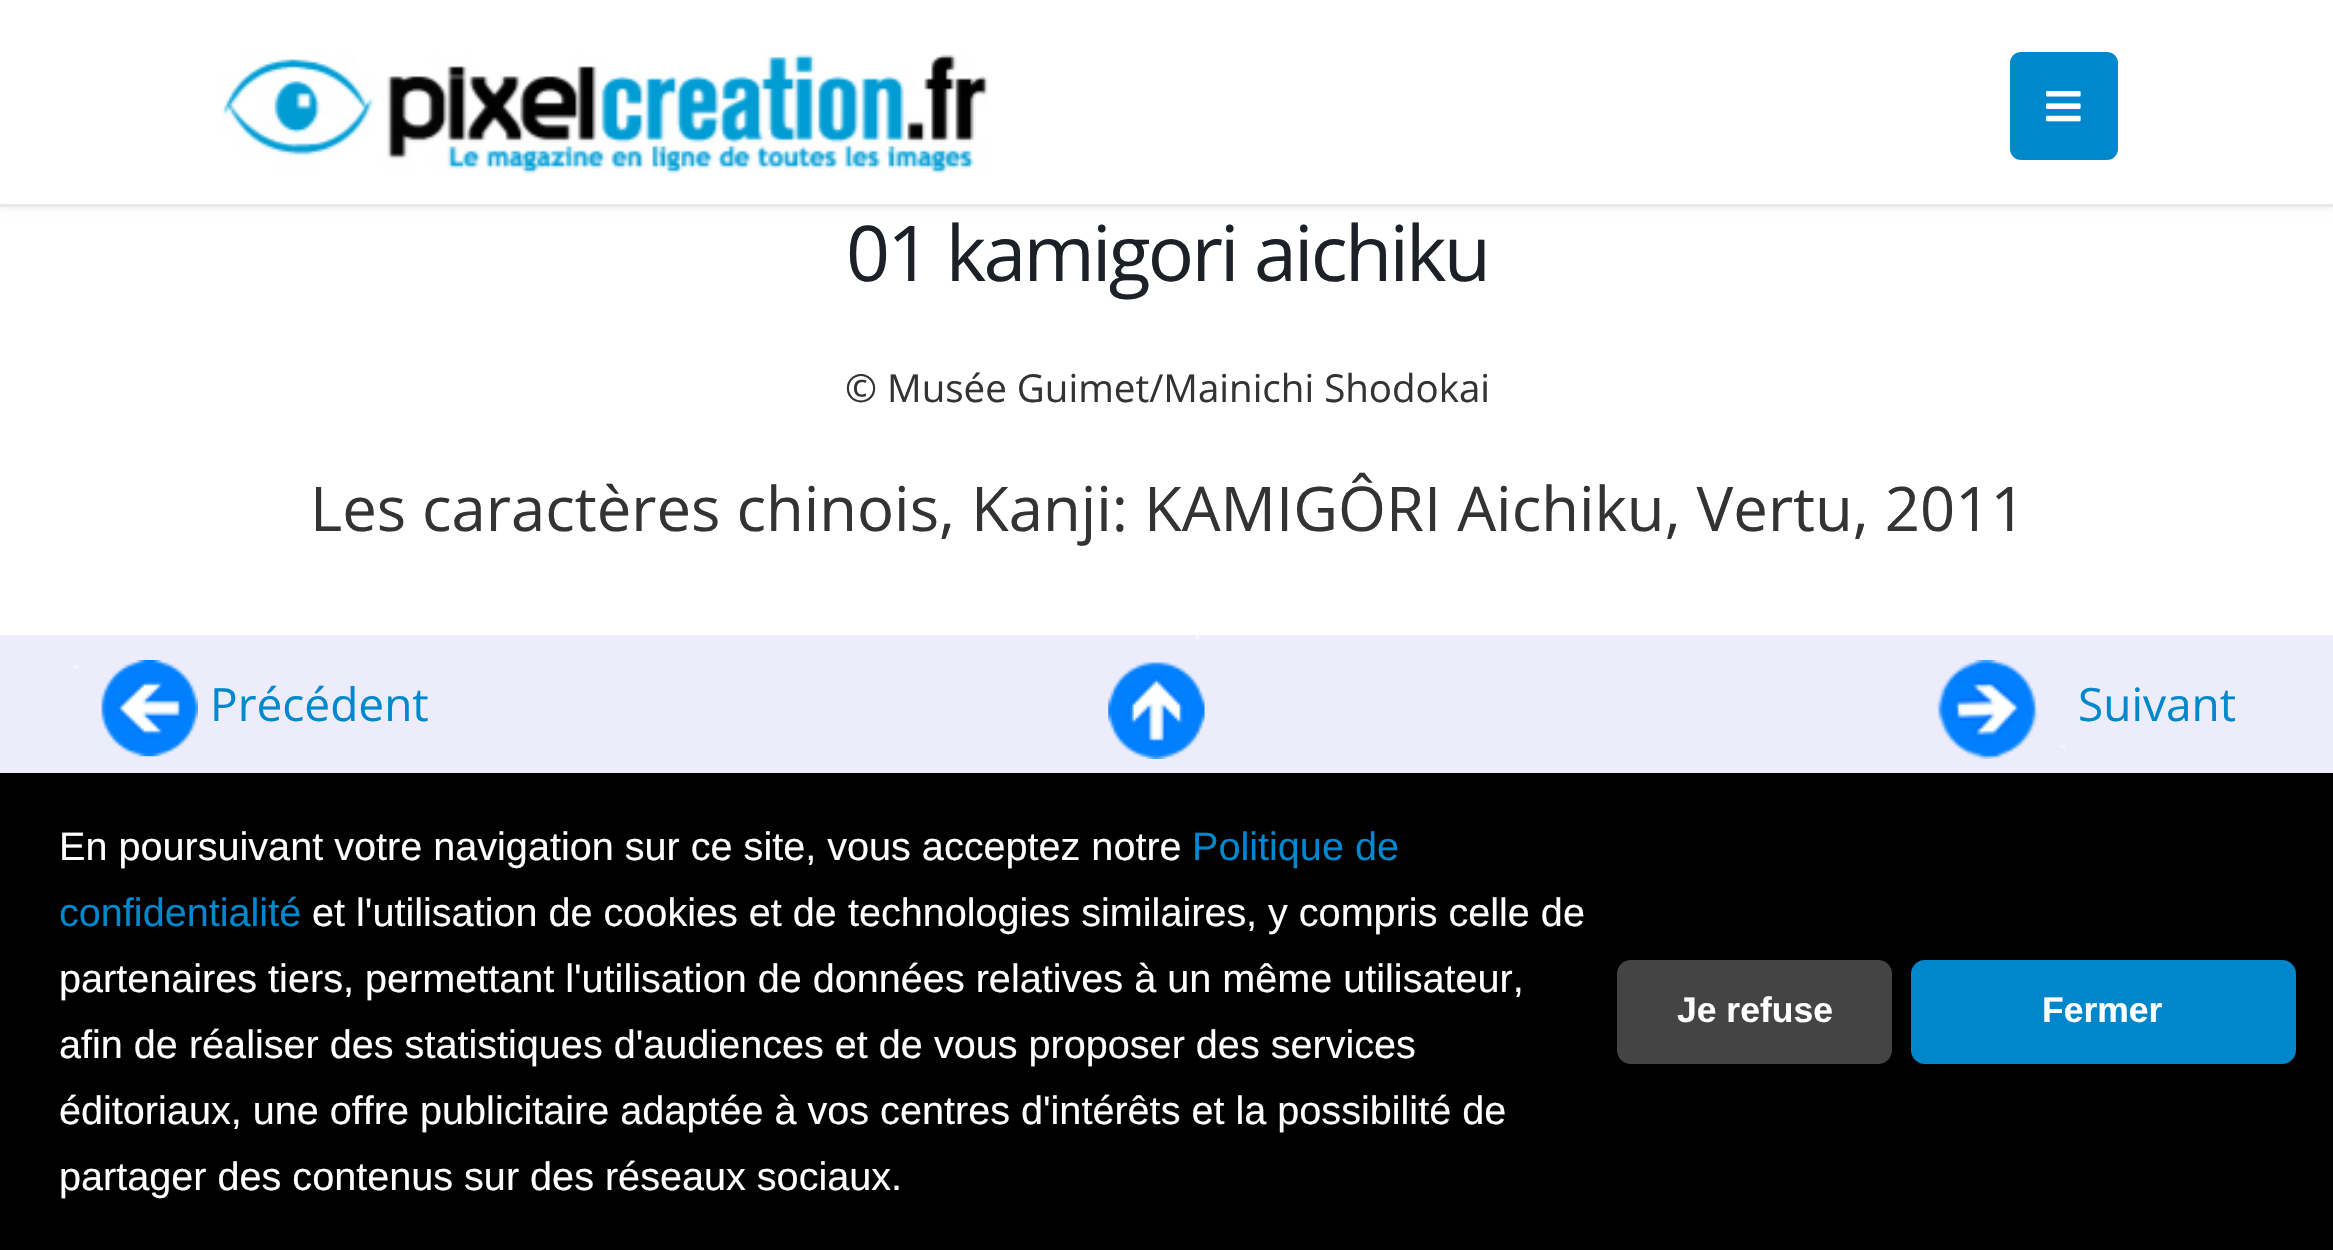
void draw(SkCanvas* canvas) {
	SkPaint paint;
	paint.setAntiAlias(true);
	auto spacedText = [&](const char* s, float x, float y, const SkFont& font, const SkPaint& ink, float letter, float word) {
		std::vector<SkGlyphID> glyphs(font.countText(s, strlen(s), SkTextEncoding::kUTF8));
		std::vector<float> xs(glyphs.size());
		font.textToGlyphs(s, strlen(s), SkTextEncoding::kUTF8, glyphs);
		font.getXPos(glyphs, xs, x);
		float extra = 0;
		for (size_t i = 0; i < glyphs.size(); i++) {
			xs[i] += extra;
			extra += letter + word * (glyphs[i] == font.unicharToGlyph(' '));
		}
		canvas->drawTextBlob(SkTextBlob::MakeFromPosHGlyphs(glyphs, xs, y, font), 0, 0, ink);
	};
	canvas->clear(0xffffffff);
	paint.setColor(0x1a000000);
	paint.setMaskFilter(SkMaskFilter::MakeBlur(kNormal_SkBlurStyle, 4));
	canvas->drawRect(SkRect::MakeXYWH(0, -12, 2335, 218), paint);
	paint.setMaskFilter(nullptr);
	paint.setColor(0xffffffff);
	canvas->drawRect(SkRect::MakeXYWH(0, 0, 2333, 204), paint);
	paint.setColor(0xffe9e9e9);
	canvas->drawRect(SkRect::MakeXYWH(0, 204, 2333, 3), paint);
	canvas->drawImageRect(SkImages::DeferredFromEncodedData(SkData::MakeFromFileName("img1.png")), SkRect::MakeXYWH(221, 54, 767, 120), SkSamplingOptions());
	paint.setColor(0xff0088cc);
	canvas->drawRoundRect(SkRect::MakeXYWH(2010, 52, 108, 108), 11, 11, paint);
	canvas->drawImageRect(SkImages::DeferredFromEncodedData(SkData::MakeFromFileName("img2.png")), SkRect::MakeXYWH(2046, 91, 35, 31), SkSamplingOptions());
	SkFont f1(fontMgr->matchFamilyStyle("Open Sans", SkFontStyle::Normal()), 77);
	f1.setSubpixel(true);
	paint.setColor(0xff1d2127);
	spacedText("01 kamigori aichiku", 846, 281, f1, paint, -2.75, 0);
	SkFont f2(fontMgr->matchFamilyStyle("Open Sans", SkFontStyle::Normal()), 38.5);
	f2.setSubpixel(true);
	paint.setColor(0xff333333);
	canvas->drawString("© Musée Guimet/Mainichi Shodokai", 845, 402, f2, paint);
	SkFont f3(fontMgr->matchFamilyStyle("Open Sans", SkFontStyle::Normal()), 61.6);
	f3.setSubpixel(true);
	canvas->drawString("Les caractères chinois, Kanji: KAMIGÔRI Aichiku, Vertu, 2011", 310, 531, f3, paint);
	paint.setColor(0xffececfb);
	canvas->drawRect(SkRect::MakeXYWH(0, 635, 2333, 138), paint);
	canvas->drawImageRect(SkImages::DeferredFromEncodedData(SkData::MakeFromFileName("img3.png")), SkRect::MakeXYWH(74, 660, 124, 97), SkSamplingOptions());
	SkFont f4(fontMgr->matchFamilyStyle("Open Sans", SkFontStyle::Normal()), 46);
	f4.setSubpixel(true);
	paint.setColor(0xff0088cc);
	canvas->drawString("Précédent", 210, 721, f4, paint);
	canvas->drawImageRect(SkImages::DeferredFromEncodedData(SkData::MakeFromFileName("img4.png")), SkRect::MakeXYWH(1108, 635, 97, 124), SkSamplingOptions());
	canvas->drawImageRect(SkImages::DeferredFromEncodedData(SkData::MakeFromFileName("img5.png")), SkRect::MakeXYWH(1936, 660, 129, 99), SkSamplingOptions());
	canvas->drawString("Suivant", 2078, 721, f4, paint);
	paint.setColor(0xff000000);
	canvas->drawRect(SkRect::MakeXYWH(0, 773, 2333, 477), paint);
	SkFont f5(fontMgr->matchFamilyStyle("Liberation Sans", SkFontStyle::Normal()), 39.6);
	f5.setSubpixel(true);
	paint.setColor(0xffffffff);
	canvas->drawString("En poursuivant votre navigation sur ce site, vous acceptez notre", 59, 860, f5, paint);
	paint.setColor(0xff0088cc);
	canvas->drawString("Politique de", 1192, 860, f5, paint);
	canvas->drawString("confidentialité", 59, 926, f5, paint);
	paint.setColor(0xffffffff);
	canvas->drawString("et l'utilisation de cookies et de technologies similaires", 312, 926, f5, paint);
	canvas->drawString(", y compris celle de", 1246, 926, f5, paint);
	canvas->drawString("partenaires tiers, permettant l'utilisation de données relatives à un même utilisateur,", 59, 992, f5, paint);
	canvas->drawString("afin de réaliser des statistiques d'audiences et de vous proposer des services", 59, 1058, f5, paint);
	canvas->drawString("éditoriaux, une offre publicitaire adaptée à vos centres d'intérêts et la possibilité de", 59, 1124, f5, paint);
	canvas->drawString("partager des contenus sur des réseaux sociaux.", 59, 1190, f5, paint);
	paint.setColor(0xff444444);
	canvas->drawRoundRect(SkRect::MakeXYWH(1617, 960, 275, 104), 14, 14, paint);
	SkFont f6(fontMgr->matchFamilyStyle("Liberation Sans", SkFontStyle::Bold()), 35.5);
	f6.setSubpixel(true);
	paint.setColor(0xffffffff);
	canvas->drawString("Je refuse", 1677, 1022, f6, paint);
	paint.setColor(0xff0086cb);
	canvas->drawRoundRect(SkRect::MakeXYWH(1911, 960, 385, 104), 14, 14, paint);
	paint.setColor(0xffffffff);
	canvas->drawString("Fermer", 2042, 1022, f6, paint);
}
